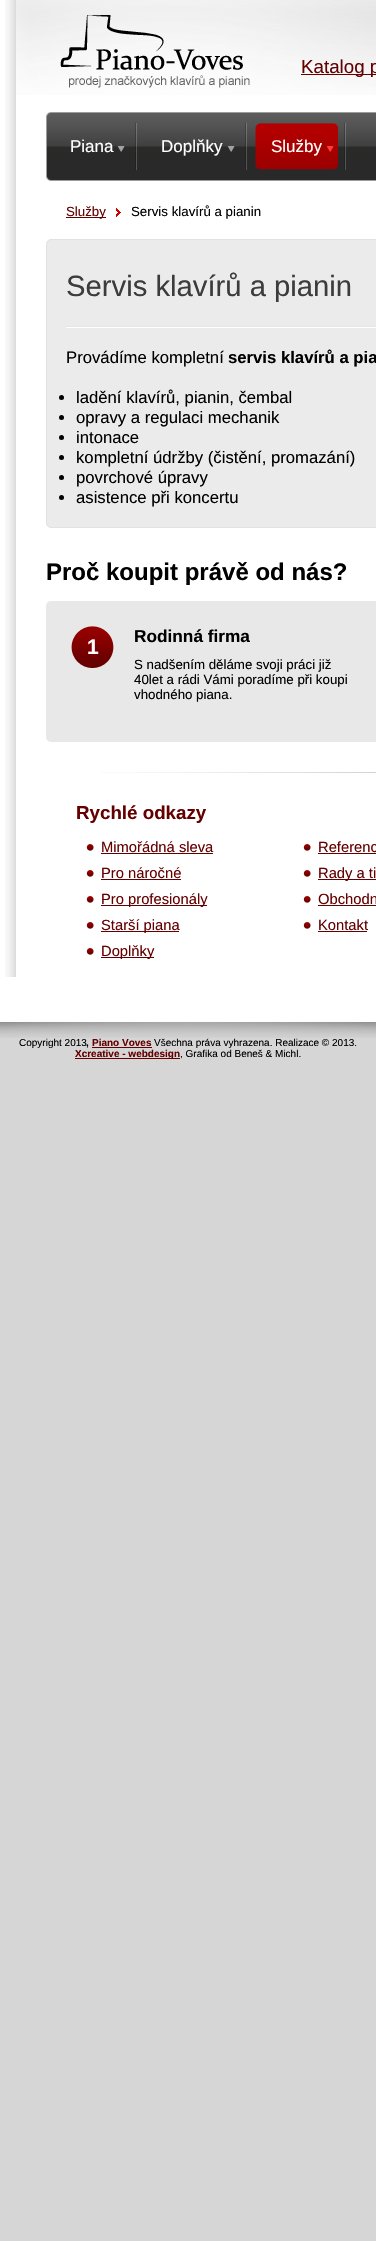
void draw(SkCanvas* canvas) {
	SkPaint paint;
	paint.setAntiAlias(true);
	canvas->clear(0xffd6d6d6);
	paint.setColor(0xffffffff);
	canvas->drawRect(SkRect::MakeXYWH(0, 0, 376, 977), paint);
	canvas->drawImageRect(SkImages::DeferredFromEncodedData(SkData::MakeFromFileName("img1.png")), SkRect::MakeXYWH(5, 0, 11, 977), SkSamplingOptions());
	canvas->drawImageRect(SkImages::DeferredFromEncodedData(SkData::MakeFromFileName("img2.png")), SkRect::MakeXYWH(16, 0, 360, 95), SkSamplingOptions());
	canvas->drawImageRect(SkImages::DeferredFromEncodedData(SkData::MakeFromFileName("img3.png")), SkRect::MakeXYWH(60, 15, 190, 73), SkSamplingOptions());
	paint.setColor(0xff640000);
	canvas->drawRect(SkRect::MakeXYWH(301, 74, 75, 1), paint);
	SkFont f1(fontMgr->matchFamilyStyle("Liberation Sans", SkFontStyle::Normal()), 18.75);
	f1.setSubpixel(true);
	canvas->drawString("Katalog p", 301, 73, f1, paint);
	canvas->drawImageRect(SkImages::DeferredFromEncodedData(SkData::MakeFromFileName("img4.png")), SkRect::MakeXYWH(51, 112, 325, 69), SkSamplingOptions());
	canvas->drawImageRect(SkImages::DeferredFromEncodedData(SkData::MakeFromFileName("img5.png")), SkRect::MakeXYWH(46, 112, 5, 69), SkSamplingOptions());
	canvas->drawImageRect(SkImages::DeferredFromEncodedData(SkData::MakeFromFileName("img6.png")), SkRect::MakeXYWH(135, 123, 2, 47), SkSamplingOptions());
	SkFont f2(fontMgr->matchFamilyStyle("Liberation Sans", SkFontStyle::Normal()), 17);
	f2.setSubpixel(true);
	paint.setColor(0xffffffff);
	canvas->drawString("Piana", 70, 152, f2, paint);
	canvas->drawImageRect(SkImages::DeferredFromEncodedData(SkData::MakeFromFileName("img7.png")), SkRect::MakeXYWH(117, 146, 8, 6), SkSamplingOptions());
	canvas->drawImageRect(SkImages::DeferredFromEncodedData(SkData::MakeFromFileName("img6.png")), SkRect::MakeXYWH(245, 123, 2, 47), SkSamplingOptions());
	canvas->drawString("Doplňky", 161, 152, f2, paint);
	canvas->drawImageRect(SkImages::DeferredFromEncodedData(SkData::MakeFromFileName("img7.png")), SkRect::MakeXYWH(227, 146, 8, 6), SkSamplingOptions());
	canvas->drawImageRect(SkImages::DeferredFromEncodedData(SkData::MakeFromFileName("img6.png")), SkRect::MakeXYWH(344, 123, 2, 47), SkSamplingOptions());
	canvas->drawImageRect(SkImages::DeferredFromEncodedData(SkData::MakeFromFileName("img8.png")), SkRect::MakeXYWH(260, 123, 73, 47), SkSamplingOptions());
	canvas->drawImageRect(SkImages::DeferredFromEncodedData(SkData::MakeFromFileName("img9.png")), SkRect::MakeXYWH(333, 123, 5, 47), SkSamplingOptions());
	canvas->drawImageRect(SkImages::DeferredFromEncodedData(SkData::MakeFromFileName("img10.png")), SkRect::MakeXYWH(255, 123, 5, 47), SkSamplingOptions());
	canvas->drawString("Služby", 271, 152, f2, paint);
	canvas->drawImageRect(SkImages::DeferredFromEncodedData(SkData::MakeFromFileName("img11.png")), SkRect::MakeXYWH(327, 146, 7, 6), SkSamplingOptions());
	paint.setColor(0xff640000);
	canvas->drawRect(SkRect::MakeXYWH(66, 217, 40, 1), paint);
	SkFont f3(fontMgr->matchFamilyStyle("Liberation Sans", SkFontStyle::Normal()), 13.3);
	f3.setSubpixel(true);
	canvas->drawString("Služby", 66, 216, f3, paint);
	canvas->drawImageRect(SkImages::DeferredFromEncodedData(SkData::MakeFromFileName("img12.png")), SkRect::MakeXYWH(116, 208, 5, 9), SkSamplingOptions());
	paint.setColor(0xff000000);
	canvas->drawString("Servis klavírů a pianin", 131, 216, f3, paint);
	paint.setColor(0xffebebeb);
	canvas->drawRoundRect(SkRect::MakeXYWH(46.5, 239.5, 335, 288), 4.5, 4.5, paint);
	paint.setStroke(true);
	paint.setStrokeWidth(1);
	paint.setColor(0xffe2e2e2);
	canvas->drawRoundRect(SkRect::MakeXYWH(46.5, 239.5, 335, 288), 4.5, 4.5, paint);
	canvas->drawImageRect(SkImages::DeferredFromEncodedData(SkData::MakeFromFileName("img13.png")), SkRect::MakeXYWH(66, 326, 310, 2), SkSamplingOptions());
	SkFont f4(fontMgr->matchFamilyStyle("Liberation Sans", SkFontStyle::Normal()), 29.25);
	f4.setSubpixel(true);
	paint.setStroke(false);
	paint.setColor(0xff3c3c3c);
	canvas->drawString("Servis klavírů a pianin", 66, 296, f4, paint);
	SkFont f5(fontMgr->matchFamilyStyle("Liberation Sans", SkFontStyle::Normal()), 16.7);
	f5.setSubpixel(true);
	paint.setColor(0xff000000);
	canvas->drawString("Provádíme kompletní", 66, 363, f5, paint);
	SkFont f6(fontMgr->matchFamilyStyle("Liberation Sans", SkFontStyle::Bold()), 16.7);
	f6.setSubpixel(true);
	canvas->drawString("servis klavírů a pia", 228, 363, f6, paint);
	canvas->drawCircle(61.5, 397.5, 2.5, paint);
	canvas->drawString("ladění klavírů, pianin, čembal", 76, 403, f5, paint);
	canvas->drawCircle(61.5, 417.5, 2.5, paint);
	canvas->drawString("opravy a regulaci mechanik", 76, 423, f5, paint);
	canvas->drawCircle(61.5, 437.5, 2.5, paint);
	canvas->drawString("intonace", 76, 443, f5, paint);
	canvas->drawCircle(61.5, 457.5, 2.5, paint);
	canvas->drawString("kompletní údržby (čistění, promazání)", 76, 463, f5, paint);
	canvas->drawCircle(61.5, 477.5, 2.5, paint);
	canvas->drawString("povrchové úpravy", 76, 483, f5, paint);
	canvas->drawCircle(61.5, 497.5, 2.5, paint);
	canvas->drawString("asistence při koncertu", 76, 503, f5, paint);
	SkFont f7(fontMgr->matchFamilyStyle("Liberation Sans", SkFontStyle::Bold()), 24);
	f7.setSubpixel(true);
	canvas->drawString("Proč koupit právě od nás?", 46, 580, f7, paint);
	paint.setColor(0xffe8e8e8);
	canvas->drawRoundRect(SkRect::MakeXYWH(46, 601, 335, 141), 5, 5, paint);
	SkFont f8(fontMgr->matchFamilyStyle("Liberation Sans", SkFontStyle::Bold()), 17.25);
	f8.setSubpixel(true);
	paint.setColor(0xff000000);
	canvas->drawString("Rodinná firma", 134, 642, f8, paint);
	canvas->drawImageRect(SkImages::DeferredFromEncodedData(SkData::MakeFromFileName("img14.png")), SkRect::MakeXYWH(71, 626, 43, 42), SkSamplingOptions());
	SkFont f9(fontMgr->matchFamilyStyle("Liberation Sans", SkFontStyle::Bold()), 21);
	f9.setSubpixel(true);
	paint.setColor(0xffffffff);
	canvas->drawString("1", 87, 654, f9, paint);
	paint.setColor(0xff000000);
	canvas->drawString("S nadšením děláme svoji práci již", 134, 669, f3, paint);
	canvas->drawString("40let a rádi Vámi poradíme při koupi", 134, 684, f3, paint);
	canvas->drawString("vhodného piana.", 134, 699, f3, paint);
	canvas->drawImageRect(SkImages::DeferredFromEncodedData(SkData::MakeFromFileName("img15.png")), SkRect::MakeXYWH(101, 772, 275, 1), SkSamplingOptions());
	SkFont f10(fontMgr->matchFamilyStyle("Liberation Sans", SkFontStyle::Bold()), 18.75);
	f10.setSubpixel(true);
	paint.setColor(0xff640000);
	canvas->drawString("Rychlé odkazy", 76, 819, f10, paint);
	canvas->drawImageRect(SkImages::DeferredFromEncodedData(SkData::MakeFromFileName("img16.png")), SkRect::MakeXYWH(86, 844, 8, 7), SkSamplingOptions());
	SkFont f11(fontMgr->matchFamilyStyle("Liberation Sans", SkFontStyle::Normal()), 14.75);
	f11.setSubpixel(true);
	canvas->drawString("Mimořádná sleva", 101, 852, f11, paint);
	canvas->drawRect(SkRect::MakeXYWH(101, 853, 112, 1), paint);
	canvas->drawImageRect(SkImages::DeferredFromEncodedData(SkData::MakeFromFileName("img16.png")), SkRect::MakeXYWH(86, 870, 8, 7), SkSamplingOptions());
	canvas->drawString("Pro náročné", 101, 878, f11, paint);
	canvas->drawRect(SkRect::MakeXYWH(101, 879, 80, 1), paint);
	canvas->drawImageRect(SkImages::DeferredFromEncodedData(SkData::MakeFromFileName("img16.png")), SkRect::MakeXYWH(86, 896, 8, 7), SkSamplingOptions());
	canvas->drawRect(SkRect::MakeXYWH(101, 905, 106, 1), paint);
	canvas->drawString("Pro profesionály", 101, 904, f11, paint);
	canvas->drawImageRect(SkImages::DeferredFromEncodedData(SkData::MakeFromFileName("img16.png")), SkRect::MakeXYWH(86, 922, 8, 7), SkSamplingOptions());
	canvas->drawRect(SkRect::MakeXYWH(101, 931, 78, 1), paint);
	canvas->drawString("Starší piana", 101, 930, f11, paint);
	canvas->drawImageRect(SkImages::DeferredFromEncodedData(SkData::MakeFromFileName("img16.png")), SkRect::MakeXYWH(86, 948, 8, 7), SkSamplingOptions());
	canvas->drawRect(SkRect::MakeXYWH(101, 957, 53, 1), paint);
	canvas->drawString("Doplňky", 101, 956, f11, paint);
	canvas->drawImageRect(SkImages::DeferredFromEncodedData(SkData::MakeFromFileName("img16.png")), SkRect::MakeXYWH(303, 844, 8, 7), SkSamplingOptions());
	canvas->drawString("Referenc", 318, 852, f11, paint);
	canvas->drawRect(SkRect::MakeXYWH(318, 853, 58, 1), paint);
	canvas->drawImageRect(SkImages::DeferredFromEncodedData(SkData::MakeFromFileName("img16.png")), SkRect::MakeXYWH(303, 870, 8, 7), SkSamplingOptions());
	canvas->drawRect(SkRect::MakeXYWH(318, 879, 58, 1), paint);
	canvas->drawString("Rady a ti", 318, 878, f11, paint);
	canvas->drawImageRect(SkImages::DeferredFromEncodedData(SkData::MakeFromFileName("img16.png")), SkRect::MakeXYWH(303, 896, 8, 7), SkSamplingOptions());
	canvas->drawString("Obchodn", 318, 904, f11, paint);
	canvas->drawRect(SkRect::MakeXYWH(318, 905, 58, 1), paint);
	canvas->drawImageRect(SkImages::DeferredFromEncodedData(SkData::MakeFromFileName("img16.png")), SkRect::MakeXYWH(303, 922, 8, 7), SkSamplingOptions());
	canvas->drawString("Kontakt", 318, 930, f11, paint);
	canvas->drawRect(SkRect::MakeXYWH(318, 931, 49, 1), paint);
	canvas->drawImageRect(SkImages::DeferredFromEncodedData(SkData::MakeFromFileName("img17.png")), SkRect::MakeXYWH(0, 977, 376, 61), SkSamplingOptions());
	SkFont f12(fontMgr->matchFamilyStyle("Liberation Sans", SkFontStyle::Normal()), 10);
	f12.setSubpixel(true);
	paint.setColor(0xff000000);
	canvas->drawString("Copyright 2013", 19, 1046, f12, paint);
	SkFont f13(fontMgr->matchFamilyStyle("Liberation Sans", SkFontStyle::Bold()), 10);
	f13.setSubpixel(true);
	canvas->drawString(",", 86, 1046, f13, paint);
	paint.setColor(0xff640000);
	canvas->drawRect(SkRect::MakeXYWH(92, 1047, 60, 1), paint);
	canvas->drawString("Piano Voves", 92, 1046, f13, paint);
	paint.setColor(0xff000000);
	canvas->drawString("Všechna práva vyhrazena. Realizace © 2013.", 154, 1046, f12, paint);
	paint.setColor(0xff640000);
	canvas->drawRect(SkRect::MakeXYWH(75, 1058, 105, 1), paint);
	canvas->drawString("Xcreative - webdesign", 75, 1057, f13, paint);
	paint.setColor(0xff000000);
	canvas->drawString(", Grafika od Beneš & Michl.", 180, 1057, f12, paint);
}
